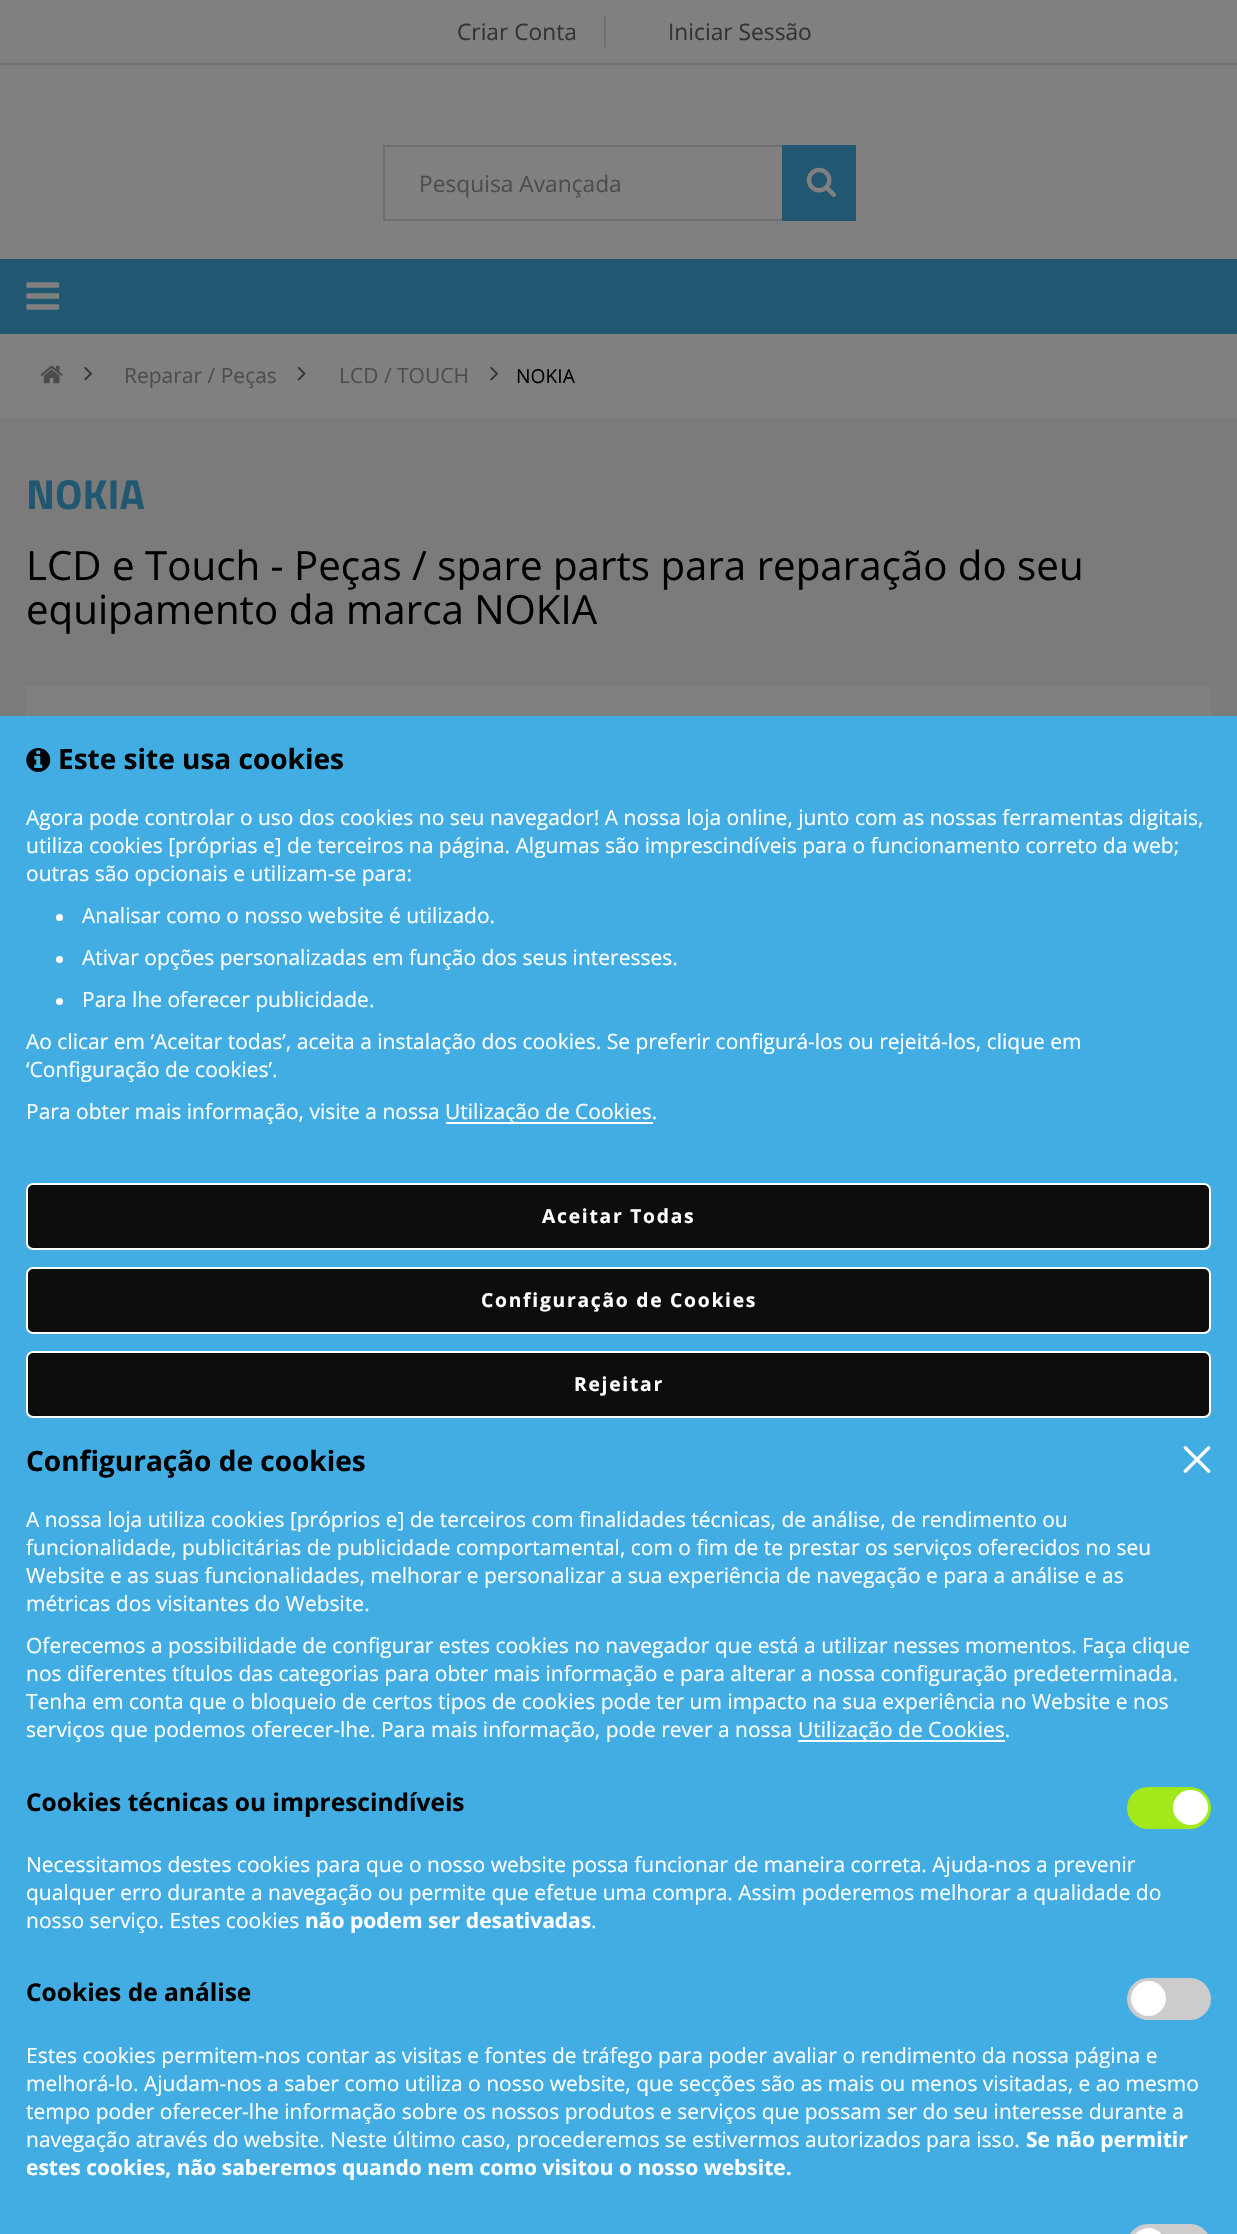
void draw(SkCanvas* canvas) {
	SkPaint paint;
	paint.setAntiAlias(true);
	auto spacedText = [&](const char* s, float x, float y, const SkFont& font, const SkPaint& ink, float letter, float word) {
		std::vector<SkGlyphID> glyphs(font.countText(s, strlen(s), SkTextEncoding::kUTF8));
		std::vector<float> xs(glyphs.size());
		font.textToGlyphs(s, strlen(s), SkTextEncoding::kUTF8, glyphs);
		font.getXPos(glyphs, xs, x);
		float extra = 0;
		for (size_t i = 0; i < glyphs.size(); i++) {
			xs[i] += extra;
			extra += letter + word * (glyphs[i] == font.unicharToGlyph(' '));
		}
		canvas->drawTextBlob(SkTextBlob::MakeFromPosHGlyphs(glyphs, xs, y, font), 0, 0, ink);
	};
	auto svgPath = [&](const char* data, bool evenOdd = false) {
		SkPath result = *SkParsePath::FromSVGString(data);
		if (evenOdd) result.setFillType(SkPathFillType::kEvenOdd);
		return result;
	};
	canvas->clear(0xff7b7b7b);
	paint.setColor(0xff808080);
	canvas->drawRect(SkRect::MakeXYWH(0, 0, 1237, 259), paint);
	paint.setColor(0xff737373);
	canvas->drawRect(SkRect::MakeXYWH(0, 63, 1237, 2), paint);
	paint.setColor(0xff6f6f6f);
	canvas->drawRect(SkRect::MakeXYWH(604, 16, 2, 31), paint);
	SkFont f1(fontMgr->matchFamilyStyle("Open Sans", SkFontStyle::Normal()), 22.75);
	f1.setSubpixel(true);
	paint.setColor(0xff333333);
	canvas->drawString("Criar Conta", 457, 40, f1, paint);
	canvas->drawString("Iniciar Sessão", 668, 40, f1, paint);
	paint.setColor(0xff215771);
	canvas->drawRect(SkRect::MakeXYWH(0, 259, 1237, 75), paint);
	paint.setColor(0xff6f6f6f);
	canvas->drawRect(SkRect::MakeXYWH(383, 145, 399, 2), paint);
	canvas->drawRect(SkRect::MakeXYWH(383, 219, 399, 2), paint);
	canvas->drawRect(SkRect::MakeXYWH(383, 145, 2, 76), paint);
	paint.setColor(0xff4d4d4d);
	canvas->drawString("Pesquisa Avançada", 419, 192, f1, paint);
	paint.setColor(0xff215771);
	canvas->drawRect(SkRect::MakeXYWH(782, 145, 74, 76), paint);
	canvas->drawImageRect(SkImages::DeferredFromEncodedData(SkData::MakeFromFileName("img1.png")), SkRect::MakeXYWH(806, 167, 30, 30), SkSamplingOptions());
	canvas->drawImageRect(SkImages::DeferredFromEncodedData(SkData::MakeFromFileName("img2.png")), SkRect::MakeXYWH(26, 282, 34, 28), SkSamplingOptions());
	paint.setColor(0xff808080);
	canvas->drawRect(SkRect::MakeXYWH(0, 334, 1237, 83), paint);
	canvas->drawImageRect(SkImages::DeferredFromEncodedData(SkData::MakeFromFileName("img3.png")), SkRect::MakeXYWH(40, 365, 23, 19), SkSamplingOptions());
	canvas->drawImageRect(SkImages::DeferredFromEncodedData(SkData::MakeFromFileName("img4.png")), SkRect::MakeXYWH(84, 366, 9, 15), SkSamplingOptions());
	SkFont f2(fontMgr->matchFamilyStyle("Open Sans", SkFontStyle::Normal()), 21);
	f2.setSubpixel(true);
	paint.setColor(0xff4d4d4d);
	canvas->drawString("Reparar / Peças", 124, 383, f2, paint);
	canvas->drawImageRect(SkImages::DeferredFromEncodedData(SkData::MakeFromFileName("img5.png")), SkRect::MakeXYWH(297, 366, 9, 15), SkSamplingOptions());
	canvas->drawString("LCD / TOUCH", 339, 383, f2, paint);
	canvas->drawImageRect(SkImages::DeferredFromEncodedData(SkData::MakeFromFileName("img4.png")), SkRect::MakeXYWH(490, 366, 9, 15), SkSamplingOptions());
	SkFont f3(fontMgr->matchFamilyStyle("Open Sans", SkFontStyle::Normal()), 19.25);
	f3.setSubpixel(true);
	paint.setColor(0xff000000);
	canvas->drawString("NOKIA", 516, 383, f3, paint);
	SkFont f4(fontMgr->matchFamilyStyle("Titillium Web", SkFontStyle::Bold()), 42);
	f4.setSubpixel(true);
	paint.setColor(0xff215771);
	canvas->drawString("NOKIA", 26, 509, f4, paint);
	SkFont f5(fontMgr->matchFamilyStyle("Open Sans", SkFontStyle::Normal()), 40.25);
	f5.setSubpixel(true);
	paint.setColor(0xff000000);
	canvas->drawString("LCD e Touch - Peças / spare parts para reparação do seu", 26, 580, f5, paint);
	canvas->drawString("equipamento da marca NOKIA", 26, 624, f5, paint);
	paint.setColor(0xff808080);
	canvas->drawRect(SkRect::MakeXYWH(26, 686, 1185, 30), paint);
	paint.setColor(0xff41ade2);
	canvas->drawRect(SkRect::MakeXYWH(0, 716, 1237, 1518), paint);
	canvas->drawImageRect(SkImages::DeferredFromEncodedData(SkData::MakeFromFileName("img6.png")), SkRect::MakeXYWH(26, 748, 25, 24), SkSamplingOptions());
	SkFont f6(fontMgr->matchFamilyStyle("Open Sans", SkFontStyle::Bold()), 28);
	f6.setSubpixel(true);
	paint.setColor(0xff000000);
	canvas->drawString("Este site usa cookies", 58, 769, f6, paint);
	paint.setColor(0xffffffff);
	canvas->drawString("Agora pode controlar o uso dos cookies no seu navegador! A nossa loja online, junto com as nossas ferramentas digitais,", 26, 825, f2, paint);
	canvas->drawString("utiliza cookies [próprias e] de terceiros na página. Algumas são imprescindíveis para o funcionamento correto da web;", 26, 853, f2, paint);
	canvas->drawString("outras são opcionais e utilizam-se para:", 26, 881, f2, paint);
	canvas->drawCircle(59.5, 917.5, 3.5, paint);
	canvas->drawString("Analisar como o nosso website é utilizado.", 82, 923, f2, paint);
	canvas->drawCircle(59.5, 959.5, 3.5, paint);
	canvas->drawString("Ativar opções personalizadas em função dos seus interesses.", 82, 965, f2, paint);
	canvas->drawCircle(59.5, 1001.5, 3.5, paint);
	canvas->drawString("Para lhe oferecer publicidade.", 82, 1007, f2, paint);
	canvas->drawString("Ao clicar em ‘Aceitar todas’, aceita a instalação dos cookies. Se preferir configurá-los ou rejeitá-los, clique em", 26, 1049, f2, paint);
	canvas->drawString("‘Configuração de cookies’.", 26, 1077, f2, paint);
	canvas->drawString("Para obter mais informação, visite a nossa", 26, 1119, f2, paint);
	canvas->drawRect(SkRect::MakeXYWH(446, 1122, 207, 2), paint);
	canvas->drawString("Utilização de Cookies.", 445, 1119, f2, paint);
	paint.setColor(0xff0d0d0d);
	canvas->drawRoundRect(SkRect::MakeXYWH(27, 1184, 1183, 65), 6, 6, paint);
	paint.setStroke(true);
	paint.setStrokeWidth(2);
	paint.setColor(0xffffffff);
	canvas->drawRoundRect(SkRect::MakeXYWH(27, 1184, 1183, 65), 6, 6, paint);
	SkFont f7(fontMgr->matchFamilyStyle("Open Sans", SkFontStyle::Bold()), 19.25);
	f7.setSubpixel(true);
	paint.setStroke(false);
	spacedText("Aceitar Todas", 542, 1223, f7, paint, 1.75, 0);
	paint.setColor(0xff0d0d0d);
	canvas->drawRoundRect(SkRect::MakeXYWH(27, 1268, 1183, 65), 6, 6, paint);
	paint.setStroke(true);
	paint.setColor(0xffffffff);
	canvas->drawRoundRect(SkRect::MakeXYWH(27, 1268, 1183, 65), 6, 6, paint);
	paint.setStroke(false);
	spacedText("Configuração de Cookies", 481, 1307, f7, paint, 1.75, 0);
	paint.setColor(0xff0d0d0d);
	canvas->drawRoundRect(SkRect::MakeXYWH(27, 1352, 1183, 65), 6, 6, paint);
	paint.setStroke(true);
	paint.setColor(0xffffffff);
	canvas->drawRoundRect(SkRect::MakeXYWH(27, 1352, 1183, 65), 6, 6, paint);
	paint.setStroke(false);
	spacedText("Rejeitar", 574, 1391, f7, paint, 1.75, 0);
	paint.setColor(0xff000000);
	canvas->drawString("Configuração de cookies", 26, 1471, f6, paint);
	canvas->drawImageRect(SkImages::DeferredFromEncodedData(SkData::MakeFromFileName("img7.png")), SkRect::MakeXYWH(1183, 1446, 28, 27), SkSamplingOptions());
	paint.setColor(0xffffffff);
	canvas->drawString("A nossa loja utiliza cookies [próprios e] de terceiros com finalidades técnicas, de análise, de rendimento ou", 26, 1527, f2, paint);
	canvas->drawString("funcionalidade, publicitárias de publicidade comportamental, com o fim de te prestar os serviços oferecidos no seu", 26, 1555, f2, paint);
	canvas->drawString("Website e as suas funcionalidades, melhorar e personalizar a sua experiência de navegação e para a análise e as", 26, 1583, f2, paint);
	canvas->drawString("métricas dos visitantes do Website.", 26, 1611, f2, paint);
	canvas->drawString("Oferecemos a possibilidade de configurar estes cookies no navegador que está a utilizar nesses momentos. Faça clique", 26, 1653, f2, paint);
	canvas->drawString("nos diferentes títulos das categorias para obter mais informação e para alterar a nossa configuração predeterminada.", 26, 1681, f2, paint);
	canvas->drawString("Tenha em conta que o bloqueio de certos tipos de cookies pode ter um impacto na sua experiência no Website e nos", 26, 1709, f2, paint);
	canvas->drawString("serviços que podemos oferecer-lhe. Para mais informação, pode rever a nossa", 26, 1737, f2, paint);
	canvas->drawRect(SkRect::MakeXYWH(798, 1740, 207, 2), paint);
	canvas->drawString("Utilização de Cookies.", 798, 1737, f2, paint);
	SkFont f8(fontMgr->matchFamilyStyle("Open Sans", SkFontStyle::Bold()), 24.5);
	f8.setSubpixel(true);
	paint.setColor(0xff000000);
	canvas->drawString("Cookies técnicas ou imprescindíveis", 26, 1811, f8, paint);
	paint.setColor(0xffa3e81a);
	canvas->drawRoundRect(SkRect::MakeXYWH(1127, 1787, 84, 42), 21, 21, paint);
	paint.setColor(0xffffffff);
	canvas->drawCircle(1190.5, 1807.5, 17.5, paint);
	canvas->drawString("Necessitamos destes cookies para que o nosso website possa funcionar de maneira correta. Ajuda-nos a prevenir", 26, 1872, f2, paint);
	canvas->drawString("qualquer erro durante a navegação ou permite que efetue uma compra. Assim poderemos melhorar a qualidade do", 26, 1900, f2, paint);
	canvas->drawString("nosso serviço. Estes cookies", 26, 1928, f2, paint);
	SkFont f9(fontMgr->matchFamilyStyle("Open Sans", SkFontStyle::Bold()), 21);
	f9.setSubpixel(true);
	canvas->drawString("não podem ser desativadas", 305, 1928, f9, paint);
	canvas->drawString(".", 591, 1928, f2, paint);
	paint.setColor(0xff000000);
	canvas->drawString("Cookies de análise", 26, 2001, f8, paint);
	paint.setColor(0xffcccccc);
	canvas->drawRoundRect(SkRect::MakeXYWH(1127, 1978, 84, 42), 21, 21, paint);
	paint.setColor(0xffffffff);
	canvas->drawCircle(1148.5, 1998.5, 17.5, paint);
	canvas->drawString("Estes cookies permitem-nos contar as visitas e fontes de tráfego para poder avaliar o rendimento da nossa página e", 26, 2063, f2, paint);
	canvas->drawString("melhorá-lo. Ajudam-nos a saber como utiliza o nosso website, que secções são as mais ou menos visitadas, e ao mesmo", 26, 2091, f2, paint);
	canvas->drawString("tempo poder oferecer-lhe informação sobre os nossos produtos e serviços que possam ser do seu interesse durante a", 26, 2119, f2, paint);
	canvas->drawString("navegação através do website. Neste último caso, procederemos se estivermos autorizados para isso.", 26, 2147, f2, paint);
	canvas->drawString("Se não permitir", 1026, 2147, f9, paint);
	canvas->drawString("estes cookies, não saberemos quando nem como visitou o nosso website.", 26, 2175, f9, paint);
	paint.setColor(0xffcccccc);
	canvas->drawPath(svgPath("M1148 2224H1190C1201.5 2224 1211 2233.5 1211 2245V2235H1127V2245C1127 2233.5 1136.5 2224 1148 2224Z"), paint);
	paint.setColor(0xffffffff);
	canvas->drawPath(svgPath("M1148.5 2228C1158 2228 1166 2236 1166 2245.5V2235H1131V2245.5C1131 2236 1139 2228 1148.5 2228Z"), paint);
}
